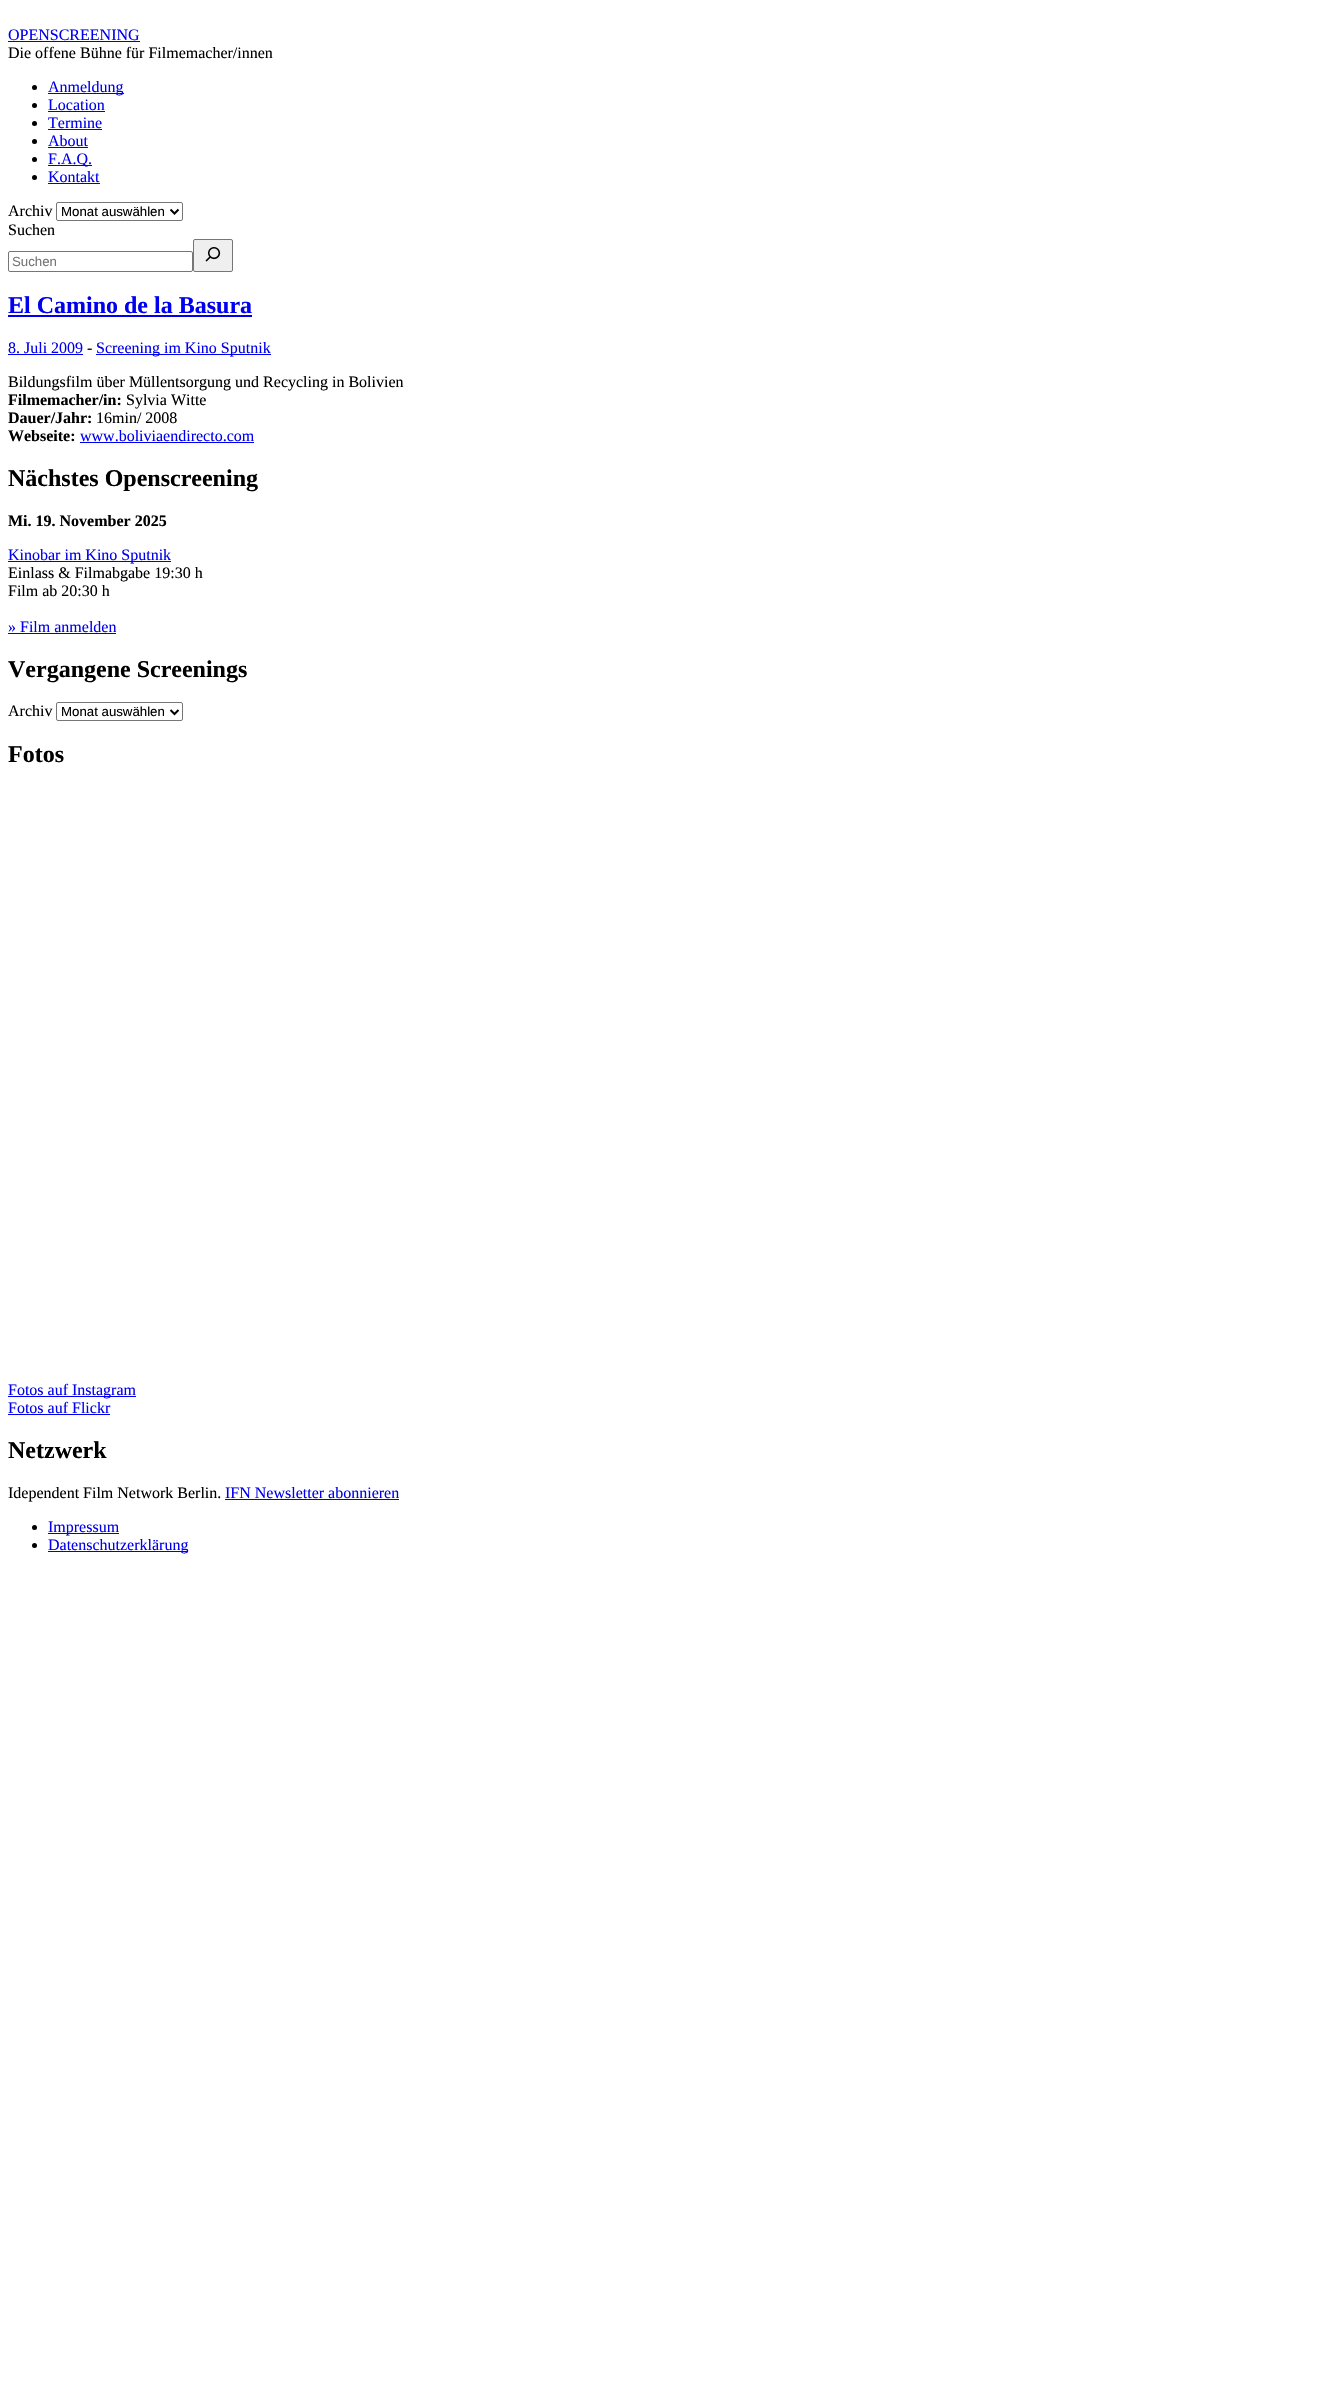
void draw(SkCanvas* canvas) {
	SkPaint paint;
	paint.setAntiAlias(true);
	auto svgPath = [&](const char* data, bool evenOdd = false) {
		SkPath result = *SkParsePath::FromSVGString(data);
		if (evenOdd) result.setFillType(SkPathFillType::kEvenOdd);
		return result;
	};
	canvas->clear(0xffffffff);
	SkFont f1(fontMgr->matchFamilyStyle("Liberation Serif", SkFontStyle::Normal()), 16);
	f1.setSubpixel(true);
	paint.setColor(0xff0000ee);
	canvas->drawString("OPENSCREENING", 8, 40, f1, paint);
	canvas->drawRect(SkRect::MakeXYWH(8, 41, 132, 1), paint);
	paint.setColor(0xff000000);
	canvas->drawString("Die offene Bühne für Filmemacher/innen", 8, 58, f1, paint);
	canvas->drawCircle(34.5, 87.5, 2.5, paint);
	paint.setColor(0xff0000ee);
	canvas->drawRect(SkRect::MakeXYWH(48, 93, 76, 1), paint);
	canvas->drawString("Anmeldung", 48, 92, f1, paint);
	paint.setColor(0xff000000);
	canvas->drawCircle(34.5, 105.5, 2.5, paint);
	paint.setColor(0xff0000ee);
	canvas->drawString("Location", 48, 110, f1, paint);
	canvas->drawRect(SkRect::MakeXYWH(48, 111, 57, 1), paint);
	paint.setColor(0xff000000);
	canvas->drawCircle(34.5, 123.5, 2.5, paint);
	paint.setColor(0xff0000ee);
	canvas->drawString("Termine", 48, 128, f1, paint);
	canvas->drawRect(SkRect::MakeXYWH(48, 129, 54, 1), paint);
	paint.setColor(0xff000000);
	canvas->drawCircle(34.5, 141.5, 2.5, paint);
	paint.setColor(0xff0000ee);
	canvas->drawString("About", 48, 146, f1, paint);
	canvas->drawRect(SkRect::MakeXYWH(48, 147, 40, 1), paint);
	paint.setColor(0xff000000);
	canvas->drawCircle(34.5, 159.5, 2.5, paint);
	paint.setColor(0xff0000ee);
	canvas->drawRect(SkRect::MakeXYWH(48, 165, 44, 1), paint);
	canvas->drawString("F.A.Q.", 48, 164, f1, paint);
	paint.setColor(0xff000000);
	canvas->drawCircle(34.5, 177.5, 2.5, paint);
	paint.setColor(0xff0000ee);
	canvas->drawString("Kontakt", 48, 182, f1, paint);
	canvas->drawRect(SkRect::MakeXYWH(48, 183, 52, 1), paint);
	paint.setColor(0xff000000);
	canvas->drawString("Archiv", 8, 216, f1, paint);
	paint.setStroke(true);
	paint.setStrokeWidth(1);
	paint.setColor(0xff767676);
	canvas->drawRoundRect(SkRect::MakeXYWH(56.5, 202.5, 126, 18), 1.5, 1.5, paint);
	paint.setStrokeWidth(2);
	paint.setColor(0xff000000);
	canvas->drawPath(svgPath("M170.5 209.5L174.5 213.5L178.5 209.5"), paint);
	SkFont f2(fontMgr->matchFamilyStyle("Liberation Sans", SkFontStyle::Normal()), 13.25);
	f2.setSubpixel(true);
	paint.setStroke(false);
	canvas->drawString("Monat auswählen", 61, 216, f2, paint);
	canvas->drawString("Suchen", 8, 235, f1, paint);
	paint.setStroke(true);
	paint.setStrokeWidth(1);
	paint.setColor(0xff767676);
	canvas->drawRoundRect(SkRect::MakeXYWH(8.5, 251.5, 184, 20), 1.5, 1.5, paint);
	paint.setStroke(false);
	paint.setColor(0xff757575);
	canvas->drawString("Suchen", 12, 266, f2, paint);
	paint.setColor(0xffefefef);
	canvas->drawRoundRect(SkRect::MakeXYWH(193.5, 239.5, 39, 32), 1.5, 1.5, paint);
	paint.setStroke(true);
	paint.setColor(0xff767676);
	canvas->drawRoundRect(SkRect::MakeXYWH(193.5, 239.5, 39, 32), 1.5, 1.5, paint);
	canvas->drawImageRect(SkImages::DeferredFromEncodedData(SkData::MakeFromFileName("img1.png")), SkRect::MakeXYWH(205, 247, 16, 15), SkSamplingOptions());
	SkFont f3(fontMgr->matchFamilyStyle("Liberation Serif", SkFontStyle::Bold()), 24);
	f3.setSubpixel(true);
	paint.setStroke(false);
	paint.setColor(0xff0000ee);
	canvas->drawString("El Camino de la Basura", 8, 313, f3, paint);
	canvas->drawRect(SkRect::MakeXYWH(8, 315, 244, 2), paint);
	canvas->drawString("8. Juli 2009", 8, 353, f1, paint);
	canvas->drawRect(SkRect::MakeXYWH(8, 354, 75, 1), paint);
	paint.setColor(0xff000000);
	canvas->drawString("-", 87, 353, f1, paint);
	paint.setColor(0xff0000ee);
	canvas->drawRect(SkRect::MakeXYWH(96, 354, 175, 1), paint);
	canvas->drawString("Screening im Kino Sputnik", 96, 353, f1, paint);
	paint.setColor(0xff000000);
	canvas->drawString("Bildungsfilm über Müllentsorgung und Recycling in Bolivien", 8, 387, f1, paint);
	SkFont f4(fontMgr->matchFamilyStyle("Liberation Serif", SkFontStyle::Bold()), 16);
	f4.setSubpixel(true);
	canvas->drawString("Filmemacher/in:", 8, 405, f4, paint);
	canvas->drawString("Sylvia Witte", 126, 405, f1, paint);
	canvas->drawString("Dauer/Jahr:", 8, 423, f4, paint);
	canvas->drawString("16min/ 2008", 96, 423, f1, paint);
	canvas->drawString("Webseite:", 8, 441, f4, paint);
	paint.setColor(0xff0000ee);
	canvas->drawString("www.boliviaendirecto.com", 80, 441, f1, paint);
	canvas->drawRect(SkRect::MakeXYWH(80, 442, 174, 1), paint);
	paint.setColor(0xff000000);
	canvas->drawString("Nächstes Openscreening", 8, 486, f3, paint);
	canvas->drawString("Mi. 19. November 2025", 8, 526, f4, paint);
	paint.setColor(0xff0000ee);
	canvas->drawRect(SkRect::MakeXYWH(8, 561, 163, 1), paint);
	canvas->drawString("Kinobar im Kino Sputnik", 8, 560, f1, paint);
	paint.setColor(0xff000000);
	canvas->drawString("Einlass & Filmabgabe 19:30 h", 8, 578, f1, paint);
	canvas->drawString("Film ab 20:30 h", 8, 596, f1, paint);
	paint.setColor(0xff0000ee);
	canvas->drawString("» Film anmelden", 8, 632, f1, paint);
	canvas->drawRect(SkRect::MakeXYWH(8, 633, 108, 1), paint);
	paint.setColor(0xff000000);
	canvas->drawString("Vergangene Screenings", 8, 677, f3, paint);
	canvas->drawString("Archiv", 8, 716, f1, paint);
	paint.setStroke(true);
	paint.setColor(0xff767676);
	canvas->drawRoundRect(SkRect::MakeXYWH(56.5, 702.5, 126, 18), 1.5, 1.5, paint);
	paint.setStrokeWidth(2);
	paint.setColor(0xff000000);
	canvas->drawPath(svgPath("M170.5 710L174.5 714L178.5 710"), paint);
	paint.setStroke(false);
	canvas->drawString("Monat auswählen", 61, 716, f2, paint);
	canvas->drawString("Fotos", 8, 762, f3, paint);
	paint.setColor(0xff0000ee);
	canvas->drawRect(SkRect::MakeXYWH(8, 1396, 128, 1), paint);
	canvas->drawString("Fotos auf Instagram", 8, 1395, f1, paint);
	canvas->drawString("Fotos auf Flickr", 8, 1413, f1, paint);
	canvas->drawRect(SkRect::MakeXYWH(8, 1414, 102, 1), paint);
	paint.setColor(0xff000000);
	canvas->drawString("Netzwerk", 8, 1458, f3, paint);
	canvas->drawString("Idependent Film Network Berlin.", 8, 1498, f1, paint);
	paint.setColor(0xff0000ee);
	canvas->drawString("IFN Newsletter abonnieren", 225, 1498, f1, paint);
	canvas->drawRect(SkRect::MakeXYWH(225, 1499, 174, 1), paint);
	paint.setColor(0xff000000);
	canvas->drawCircle(34.5, 1527.5, 2.5, paint);
	paint.setColor(0xff0000ee);
	canvas->drawRect(SkRect::MakeXYWH(48, 1533, 71, 1), paint);
	canvas->drawString("Impressum", 48, 1532, f1, paint);
	paint.setColor(0xff000000);
	canvas->drawCircle(34.5, 1545.5, 2.5, paint);
	paint.setColor(0xff0000ee);
	canvas->drawRect(SkRect::MakeXYWH(48, 1551, 140, 1), paint);
	canvas->drawString("Datenschutzerklärung", 48, 1550, f1, paint);
}
